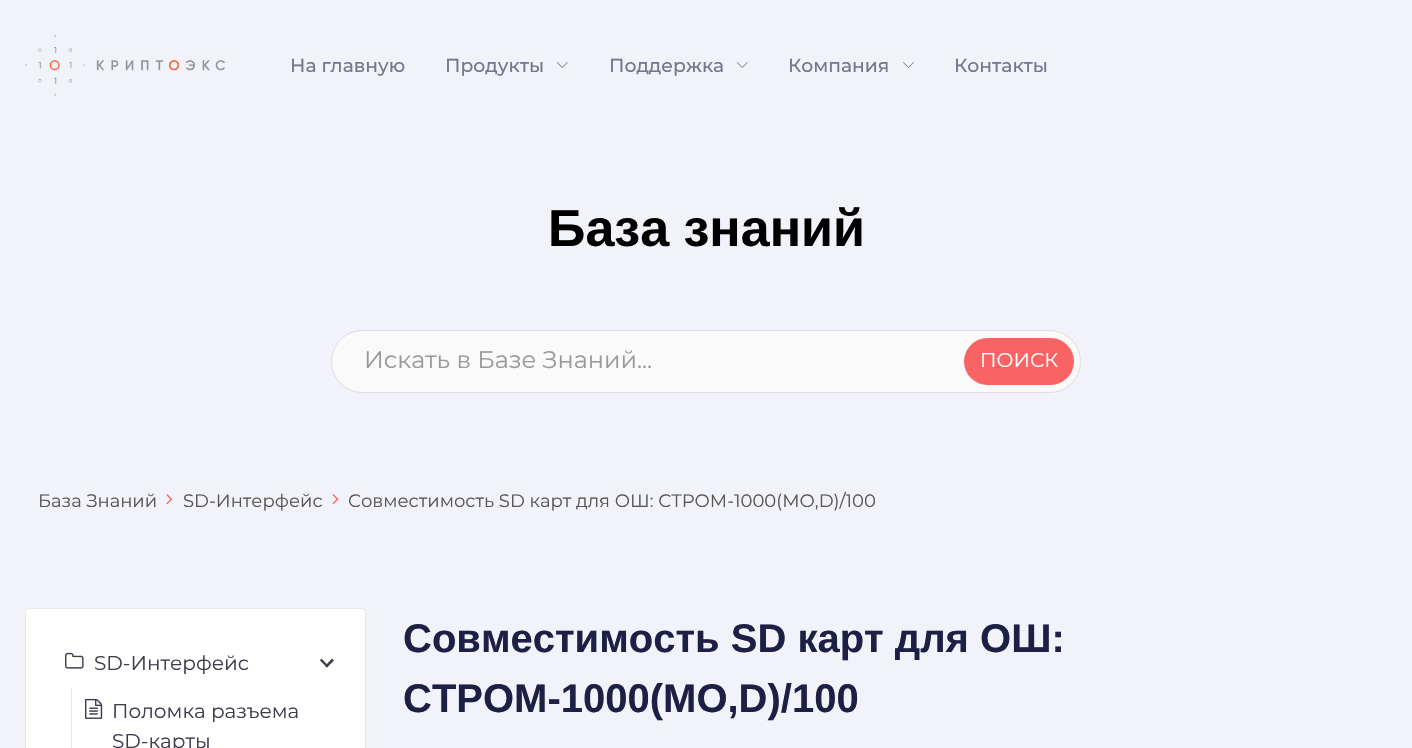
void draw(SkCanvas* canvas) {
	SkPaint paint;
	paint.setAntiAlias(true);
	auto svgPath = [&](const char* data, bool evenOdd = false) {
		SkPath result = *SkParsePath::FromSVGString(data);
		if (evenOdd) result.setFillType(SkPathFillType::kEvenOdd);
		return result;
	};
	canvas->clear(0xfff2f3fa);
	canvas->drawImageRect(SkImages::DeferredFromEncodedData(SkData::MakeFromFileName("img1.png")), SkRect::MakeXYWH(25, 35, 200, 61), SkSamplingOptions());
	SkFont f1(fontMgr->matchFamilyStyle("Montserrat", SkFontStyle(500, SkFontStyle::kNormal_Width, SkFontStyle::kUpright_Slant)), 18.75);
	f1.setSubpixel(true);
	paint.setColor(0xff76778b);
	canvas->drawString("На главную", 290, 72, f1, paint);
	canvas->drawString("Продукты", 445, 72, f1, paint);
	canvas->drawImageRect(SkImages::DeferredFromEncodedData(SkData::MakeFromFileName("img2.png")), SkRect::MakeXYWH(556, 62, 12, 6), SkSamplingOptions());
	canvas->drawString("Поддержка", 609, 72, f1, paint);
	canvas->drawImageRect(SkImages::DeferredFromEncodedData(SkData::MakeFromFileName("img2.png")), SkRect::MakeXYWH(736, 62, 12, 6), SkSamplingOptions());
	canvas->drawString("Компания", 788, 72, f1, paint);
	canvas->drawImageRect(SkImages::DeferredFromEncodedData(SkData::MakeFromFileName("img3.png")), SkRect::MakeXYWH(903, 62, 11, 6), SkSamplingOptions());
	canvas->drawString("Контакты", 954, 72, f1, paint);
	SkFont f2(fontMgr->matchFamilyStyle("Liberation Sans", SkFontStyle::Bold()), 52);
	f2.setSubpixel(true);
	paint.setColor(0xff000000);
	canvas->drawString("База знаний", 548, 246, f2, paint);
	paint.setColor(0xfffafafa);
	canvas->drawRoundRect(SkRect::MakeXYWH(331.5, 330.5, 749, 62), 31, 31, paint);
	paint.setStroke(true);
	paint.setStrokeWidth(1);
	paint.setColor(0xffdddddd);
	canvas->drawRoundRect(SkRect::MakeXYWH(331.5, 330.5, 749, 62), 31, 31, paint);
	SkFont f3(fontMgr->matchFamilyStyle("Montserrat", SkFontStyle::Normal()), 24);
	f3.setSubpixel(true);
	paint.setStroke(false);
	paint.setColor(0xff999999);
	canvas->drawString("Искать в Базе Знаний...", 364, 368, f3, paint);
	paint.setColor(0xfffa6363);
	canvas->drawRoundRect(SkRect::MakeXYWH(964, 338, 110, 47), 23.5, 23.5, paint);
	SkFont f4(fontMgr->matchFamilyStyle("Montserrat", SkFontStyle::Normal()), 20);
	f4.setSubpixel(true);
	paint.setColor(0xffffffff);
	canvas->drawString("ПОИСК", 980, 367, f4, paint);
	SkFont f5(fontMgr->matchFamilyStyle("Montserrat", SkFontStyle::Normal()), 18);
	f5.setSubpixel(true);
	paint.setColor(0xff555555);
	canvas->drawString("База Знаний", 38, 507, f5, paint);
	canvas->drawImageRect(SkImages::DeferredFromEncodedData(SkData::MakeFromFileName("img4.png")), SkRect::MakeXYWH(166, 494, 7, 11), SkSamplingOptions());
	canvas->drawString("SD-Интерфейс", 183, 507, f5, paint);
	canvas->drawImageRect(SkImages::DeferredFromEncodedData(SkData::MakeFromFileName("img5.png")), SkRect::MakeXYWH(332, 494, 7, 11), SkSamplingOptions());
	canvas->drawString("Совместимость SD карт для ОШ: СТРОМ-1000(МО,D)/100", 348, 507, f5, paint);
	paint.setColor(0xffffffff);
	canvas->drawRoundRect(SkRect::MakeXYWH(25.5, 608.5, 340, 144), 3.5, 3.5, paint);
	paint.setStroke(true);
	paint.setColor(0xffe6e6e6);
	canvas->drawRoundRect(SkRect::MakeXYWH(25.5, 608.5, 340, 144), 3.5, 3.5, paint);
	canvas->drawImageRect(SkImages::DeferredFromEncodedData(SkData::MakeFromFileName("img6.png")), SkRect::MakeXYWH(65, 652, 19, 17), SkSamplingOptions());
	paint.setStroke(false);
	paint.setColor(0xff3d3d4e);
	canvas->drawString("SD-Интерфейс", 94, 670, f4, paint);
	canvas->drawPath(svgPath("M334 660.5L327 667.5L325 666L332 658.5Z"), paint);
	canvas->drawPath(svgPath("M328.5 666L327 667.5L320 660.5L321.5 658.5Z"), paint);
	paint.setColor(0xffe6e6e6);
	canvas->drawRect(SkRect::MakeXYWH(71, 688, 1, 60), paint);
	canvas->drawImageRect(SkImages::DeferredFromEncodedData(SkData::MakeFromFileName("img7.png")), SkRect::MakeXYWH(85, 698, 18, 21), SkSamplingOptions());
	paint.setColor(0xff3d3d4e);
	canvas->drawString("Поломка разъема", 112, 718, f4, paint);
	canvas->drawString("SD-карты", 112, 748, f4, paint);
	SkFont f6(fontMgr->matchFamilyStyle("Liberation Sans", SkFontStyle::Bold()), 40);
	f6.setSubpixel(true);
	paint.setColor(0xff1d1f45);
	canvas->drawString("Совместимость SD карт для ОШ:", 403, 652, f6, paint);
	canvas->drawString("СТРОМ-1000(МО,D)/100", 403, 712, f6, paint);
}
